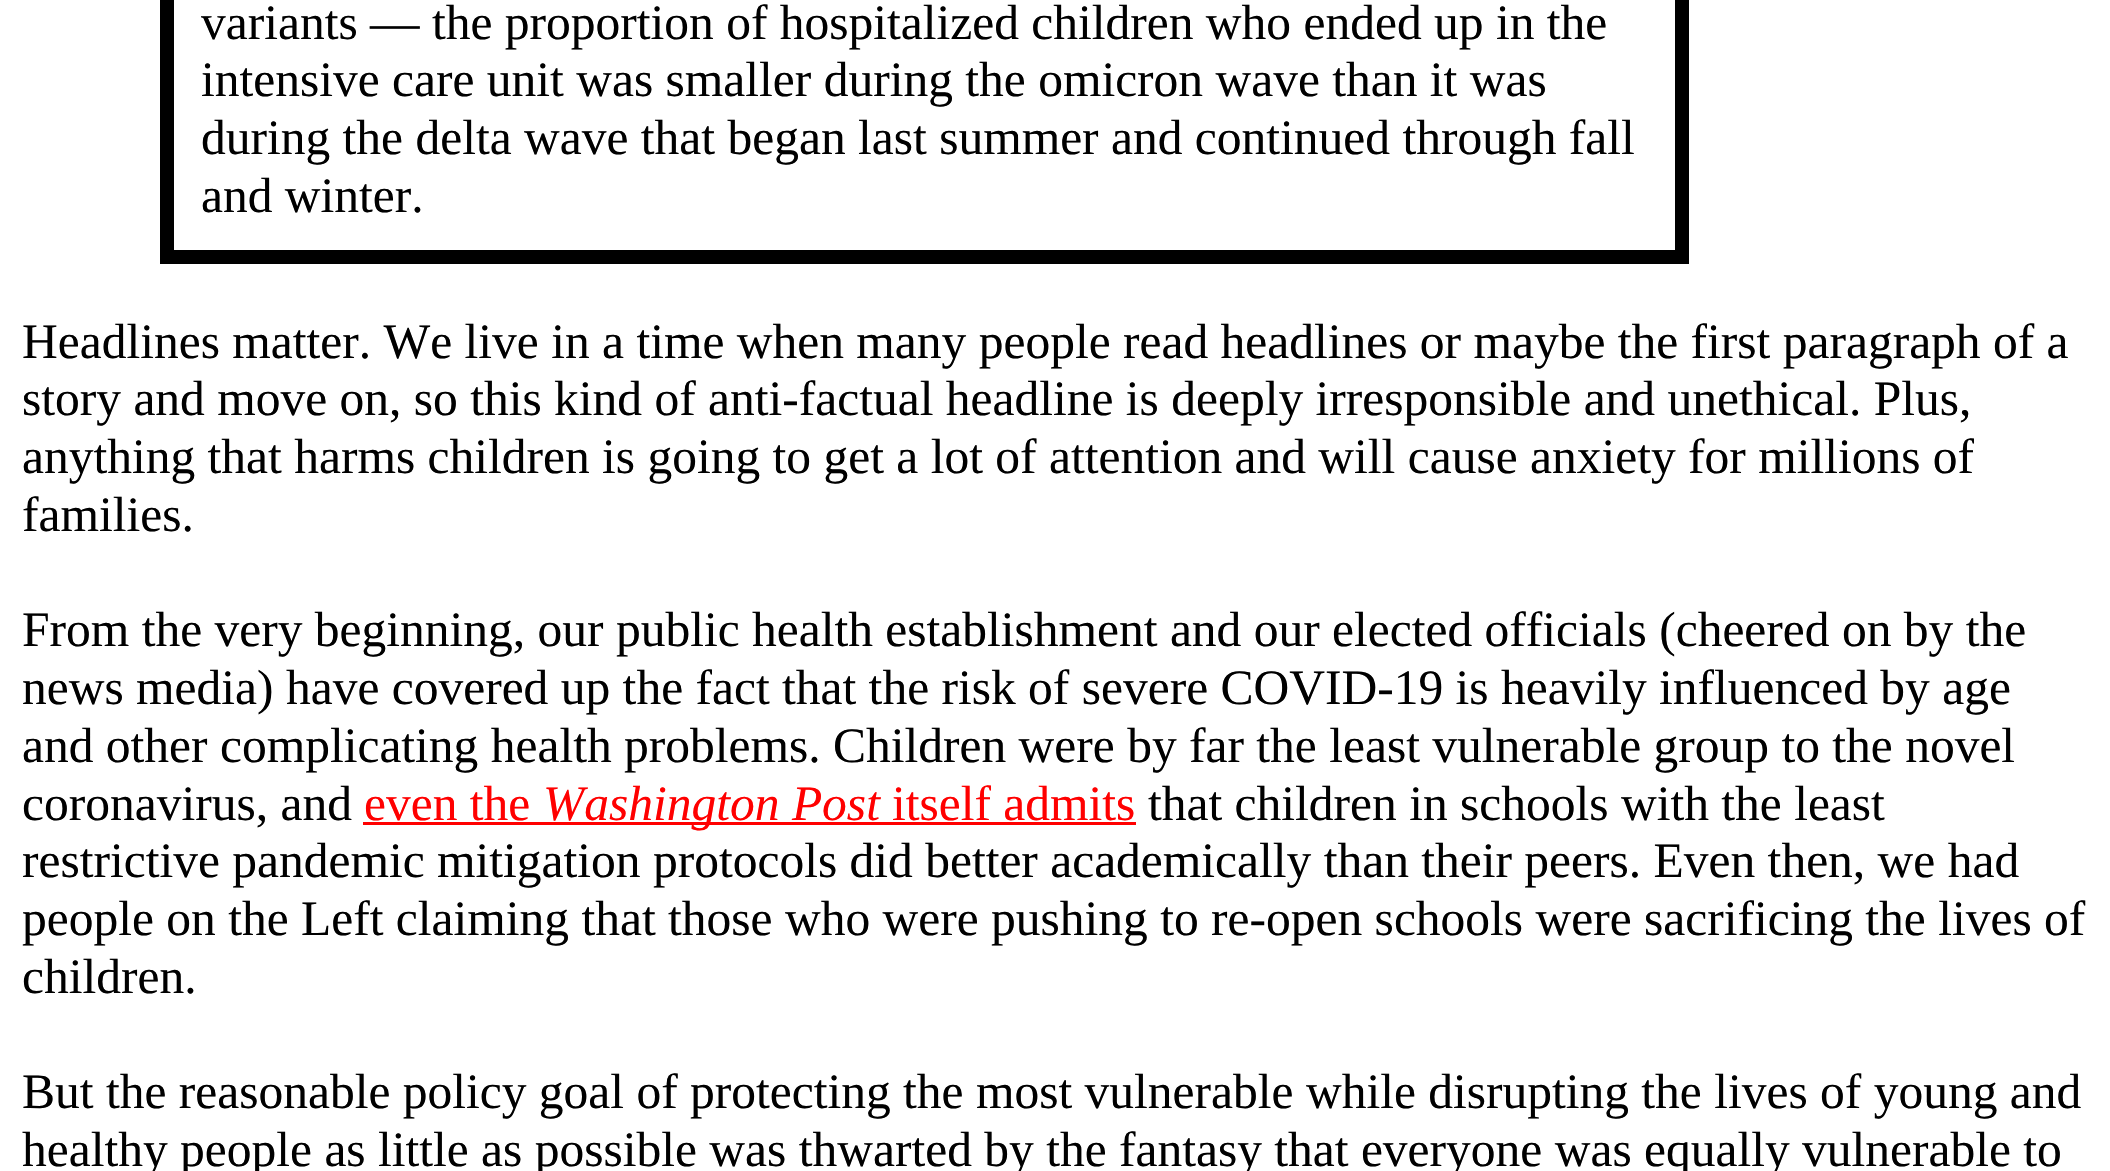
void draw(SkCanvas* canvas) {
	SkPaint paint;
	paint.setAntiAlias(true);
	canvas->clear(0xffffffff);
	paint.setStroke(true);
	paint.setStrokeWidth(14);
	paint.setColor(0xff000000);
	canvas->drawRect(SkRect::MakeXYWH(167, -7, 1515, 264), paint);
	SkFont f1(fontMgr->matchFamilyStyle("Liberation Serif", SkFontStyle::Normal()), 49.5);
	f1.setSubpixel(true);
	paint.setStroke(false);
	canvas->drawString("variants — the proportion of hospitalized children who ended up in the", 201, 39, f1, paint);
	canvas->drawString("intensive care unit was smaller during the omicron wave than it was", 201, 96, f1, paint);
	canvas->drawString("during the delta wave that began last summer and continued through fall", 201, 154, f1, paint);
	canvas->drawString("and winter.", 201, 212, f1, paint);
	canvas->drawString("Headlines matter. We live in a time when many people read headlines or maybe the first paragraph of a", 22, 358, f1, paint);
	canvas->drawString("story and move on, so this kind of anti-factual headline is deeply irresponsible and unethical. Plus,", 22, 415, f1, paint);
	canvas->drawString("anything that harms children is going to get a lot of attention and will cause anxiety for millions of", 22, 473, f1, paint);
	canvas->drawString("families.", 22, 531, f1, paint);
	canvas->drawString("From the very beginning, our public health establishment and our elected officials (cheered on by the", 22, 646, f1, paint);
	canvas->drawString("news media) have covered up the fact that the risk of severe COVID-19 is heavily influenced by age", 22, 704, f1, paint);
	canvas->drawString("and other complicating health problems. Children were by far the least vulnerable group to the novel", 22, 762, f1, paint);
	canvas->drawString("coronavirus, and", 22, 820, f1, paint);
	paint.setColor(0xffff0000);
	canvas->drawString("even the", 364, 820, f1, paint);
	canvas->drawRect(SkRect::MakeXYWH(363, 822, 517, 3), paint);
	SkFont f2(fontMgr->matchFamilyStyle("Liberation Serif", SkFontStyle::Italic()), 49.5);
	f2.setSubpixel(true);
	canvas->drawString("Washington Post", 543, 820, f2, paint);
	canvas->drawRect(SkRect::MakeXYWH(880, 822, 256, 3), paint);
	canvas->drawString("itself admits", 892, 820, f1, paint);
	paint.setColor(0xff000000);
	canvas->drawString("that children in schools with the least", 1148, 820, f1, paint);
	canvas->drawString("restrictive pandemic mitigation protocols did better academically than their peers. Even then, we had", 22, 877, f1, paint);
	canvas->drawString("people on the Left claiming that those who were pushing to re-open schools were sacrificing the lives of", 22, 935, f1, paint);
	canvas->drawString("children.", 22, 993, f1, paint);
	canvas->drawString("But the reasonable policy goal of protecting the most vulnerable while disrupting the lives of young and", 22, 1108, f1, paint);
	canvas->drawString("healthy people as little as possible was thwarted by the fantasy that everyone was equally vulnerable to", 22, 1166, f1, paint);
}
